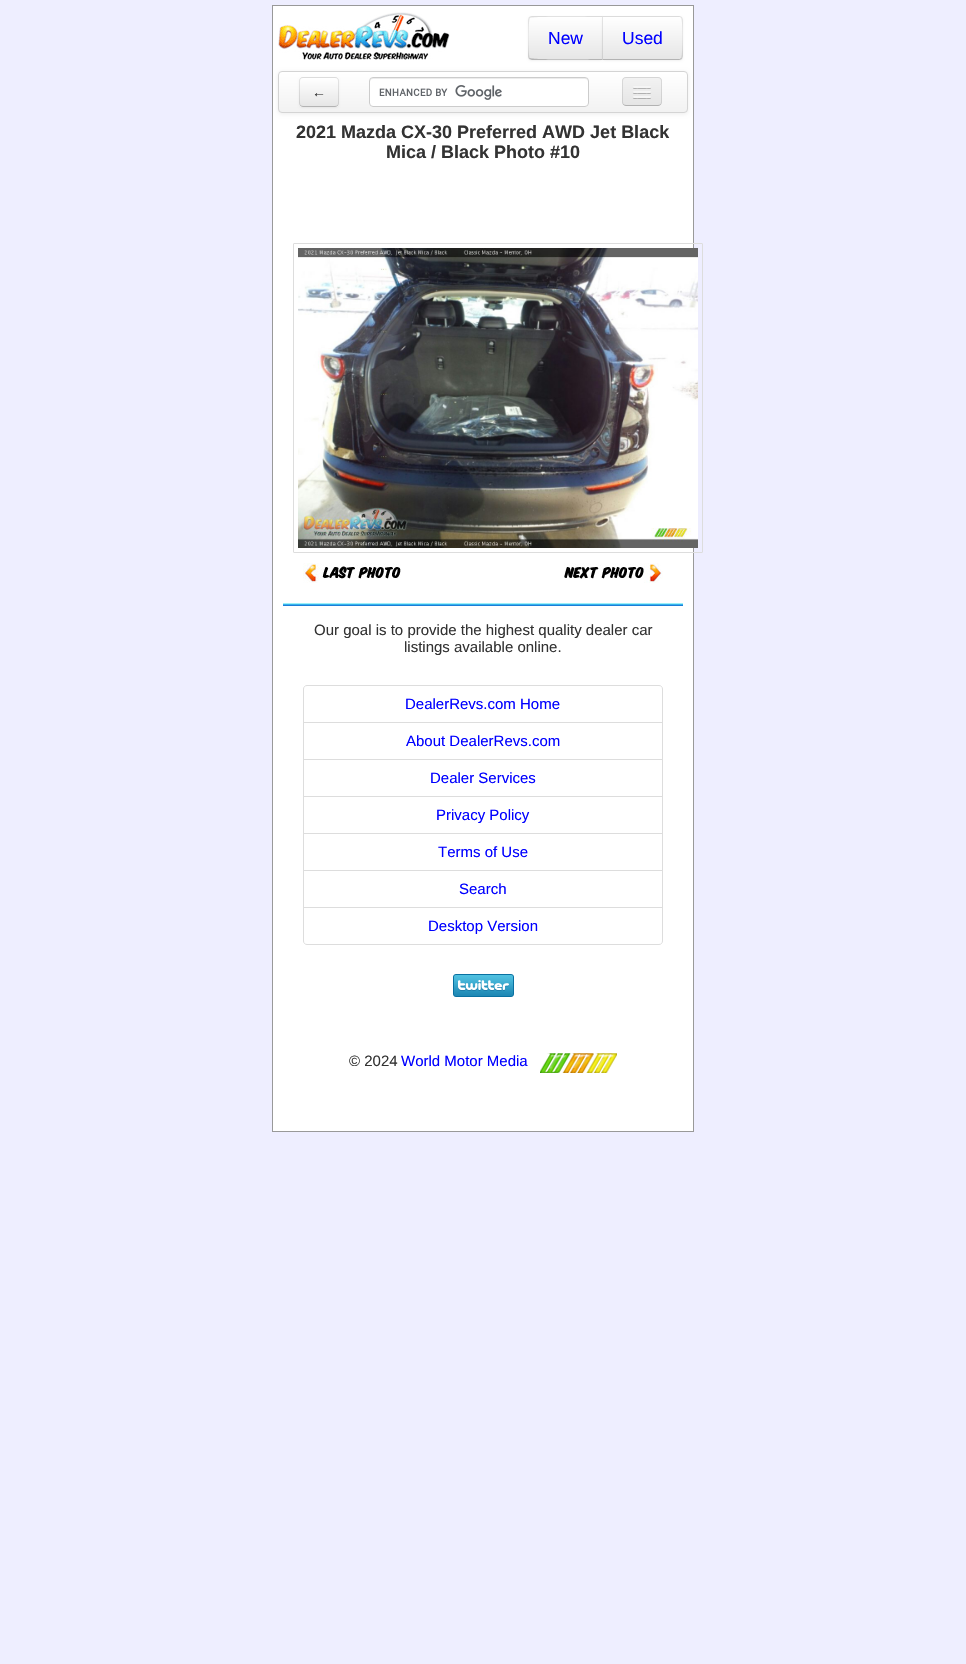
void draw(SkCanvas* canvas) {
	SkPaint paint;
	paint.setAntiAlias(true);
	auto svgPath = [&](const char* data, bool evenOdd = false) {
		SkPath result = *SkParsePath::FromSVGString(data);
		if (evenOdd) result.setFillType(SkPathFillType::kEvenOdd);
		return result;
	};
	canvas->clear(0xffeeeeff);
	paint.setColor(0xffffffff);
	canvas->drawRect(SkRect::MakeXYWH(272.5, 5.5, 421, 1126), paint);
	paint.setStroke(true);
	paint.setStrokeWidth(1);
	paint.setColor(0xff999999);
	canvas->drawRect(SkRect::MakeXYWH(272.5, 5.5, 421, 1126), paint);
	canvas->drawImageRect(SkImages::DeferredFromEncodedData(SkData::MakeFromFileName("img1.png")), SkRect::MakeXYWH(278, 12, 172, 48), SkSamplingOptions());
	paint.setStroke(false);
	paint.setColor(0x0d000000);
	paint.setMaskFilter(SkMaskFilter::MakeBlur(kNormal_SkBlurStyle, 1));
	canvas->drawRoundRect(SkRect::MakeXYWH(528, 17, 75, 44), 4, 4, paint);
	paint.setMaskFilter(nullptr);
	paint.setColor(0xfff5f5f5);
	canvas->drawPath(svgPath("M532 16H603V60H532C530 60 528 58 528 56V20C528 18 530 16 532 16Z"), paint);
	canvas->save();
	canvas->clipPath(svgPath("M532 16H603V60H532C530 60 528 58 528 56V20C528 18 530 16 532 16Z"), true);
	{
		const SkColor colors[] = {0xffffffff, 0xffe6e6e6};
		const float stops[] = {0, 1};
		const SkPoint ends[] = {{566, 17}, {566, 59}};
		paint.setShader(SkGradientShader::MakeLinear(ends, colors, stops, 2, SkTileMode::kClamp));
		paint.setAlpha(255);
	}
	canvas->drawRect(SkRect::MakeXYWH(528, 17, 74, 42), paint);
	canvas->restore();
	paint.setShader(nullptr);
	paint.setColor(0x1a000000);
	canvas->drawPath(svgPath("M532 16L529 17L530 18C531 16 594 17 602 17L603 16Z"), paint);
	paint.setColor(0xffb3b3b3);
	canvas->drawPath(svgPath("M603 60L602 59C594 59 531 60 530 58L529 59L532 60Z"), paint);
	paint.setColor(0x1a000000);
	canvas->drawPath(svgPath("M528 20V56C528 57 528 58 529 59L530 58C528 57 528 19 530 18L529 17Z"), paint);
	SkFont f1(fontMgr->matchFamilyStyle("Liberation Sans", SkFontStyle::Normal()), 17.5);
	f1.setSubpixel(true);
	paint.setColor(0xff0000ff);
	canvas->drawString("New", 548, 44, f1, paint);
	paint.setColor(0x0d000000);
	paint.setMaskFilter(SkMaskFilter::MakeBlur(kNormal_SkBlurStyle, 1));
	canvas->drawRoundRect(SkRect::MakeXYWH(602, 17, 81, 44), 4, 4, paint);
	paint.setMaskFilter(nullptr);
	paint.setColor(0xfff5f5f5);
	canvas->drawPath(svgPath("M602 16H679C681 16 683 18 683 20V56C683 58 681 60 679 60H602Z"), paint);
	canvas->save();
	canvas->clipPath(svgPath("M602 16H679C681 16 683 18 683 20V56C683 58 681 60 679 60H602Z"), true);
	{
		const SkColor colors[] = {0xffffffff, 0xffe6e6e6};
		const float stops[] = {0, 1};
		const SkPoint ends[] = {{643, 17}, {643, 59}};
		paint.setShader(SkGradientShader::MakeLinear(ends, colors, stops, 2, SkTileMode::kClamp));
		paint.setAlpha(255);
	}
	canvas->drawRect(SkRect::MakeXYWH(602, 17, 81, 42), paint);
	canvas->restore();
	paint.setShader(nullptr);
	paint.setColor(0x1a000000);
	canvas->drawPath(svgPath("M602 16L603 17H680L681 18L682 17L679 16Z"), paint);
	canvas->drawPath(svgPath("M683 56V20C683 19 682 18 682 17L681 18C683 19 683 57 681 58L682 59Z"), paint);
	paint.setColor(0xffb3b3b3);
	canvas->drawPath(svgPath("M679 60L682 59L681 58L680 59H603L602 60Z"), paint);
	paint.setColor(0x1a000000);
	canvas->drawPath(svgPath("M602 16V60L603 59V17Z"), paint);
	paint.setColor(0xff0000ff);
	canvas->drawString("Used", 622, 44, f1, paint);
	paint.setColor(0x12000000);
	paint.setMaskFilter(SkMaskFilter::MakeBlur(kNormal_SkBlurStyle, 2));
	canvas->drawRoundRect(SkRect::MakeXYWH(278, 72, 410, 42), 4, 4, paint);
	paint.setMaskFilter(nullptr);
	canvas->save();
	canvas->clipPath(svgPath("M282 71H684C686 71 688 73 688 75V109C688 111 686 113 684 113H282C280 113 278 111 278 109V75C278 73 280 71 282 71Z"), true);
	{
		const SkColor colors[] = {0xffffffff, 0xfff2f2f2};
		const float stops[] = {0, 1};
		const SkPoint ends[] = {{483, 72}, {483, 112}};
		paint.setShader(SkGradientShader::MakeLinear(ends, colors, stops, 2, SkTileMode::kClamp));
		paint.setAlpha(255);
	}
	canvas->drawRect(SkRect::MakeXYWH(278, 72, 410, 40), paint);
	canvas->restore();
	paint.setStroke(true);
	paint.setShader(nullptr);
	paint.setColor(0xffd4d4d4);
	canvas->drawRoundRect(SkRect::MakeXYWH(278.5, 71.5, 409, 41), 3.5, 3.5, paint);
	paint.setStroke(false);
	paint.setColor(0x0d000000);
	paint.setMaskFilter(SkMaskFilter::MakeBlur(kNormal_SkBlurStyle, 1));
	canvas->drawRoundRect(SkRect::MakeXYWH(299, 78, 40, 30), 4, 4, paint);
	paint.setMaskFilter(nullptr);
	paint.setColor(0xfff5f5f5);
	canvas->drawRoundRect(SkRect::MakeXYWH(299, 77, 40, 30), 4, 4, paint);
	canvas->save();
	canvas->clipPath(svgPath("M303 77H335C337 77 339 79 339 81V103C339 105 337 107 335 107H303C301 107 299 105 299 103V81C299 79 301 77 303 77Z"), true);
	{
		const SkColor colors[] = {0xffffffff, 0xffe6e6e6};
		const float stops[] = {0, 1};
		const SkPoint ends[] = {{319, 78}, {319, 106}};
		paint.setShader(SkGradientShader::MakeLinear(ends, colors, stops, 2, SkTileMode::kClamp));
		paint.setAlpha(255);
	}
	canvas->drawRect(SkRect::MakeXYWH(299, 78, 40, 28), paint);
	canvas->restore();
	paint.setStroke(true);
	paint.setShader(nullptr);
	paint.setColor(0xffb3b3b3);
	canvas->drawPath(svgPath("M337.5 105.5C337 106 336 106.5 335 106.5H303C302 106.5 301 106 300.5 105.5"), paint);
	paint.setColor(0x1a000000);
	canvas->drawPath(svgPath("M300.5 105.5C300 105 299.5 104 299.5 103V81C299.5 80 300 79 300.5 78.5C301 78 302 77.5 303 77.5H335C336 77.5 337 78 337.5 78.5C338 79 338.5 80 338.5 81V103C338.5 104 338 105 337.5 105.5"), paint);
	SkFont f2(fontMgr->matchFamilyStyle("Liberation Sans", SkFontStyle::Normal()), 14);
	f2.setSubpixel(true);
	paint.setStroke(false);
	paint.setColor(0xff333333);
	canvas->drawString("←", 312, 97, f2, paint);
	paint.setColor(0xffffffff);
	canvas->drawRoundRect(SkRect::MakeXYWH(369, 77, 220, 30), 4, 4, paint);
	canvas->drawImageRect(SkImages::DeferredFromEncodedData(SkData::MakeFromFileName("img2.png")), SkRect::MakeXYWH(379, 85, 123, 15), SkSamplingOptions());
	paint.setColor(0xffececec);
	canvas->drawPath(svgPath("M373 79H585C587 79 588 80 588 82V81C588 79 587 78 585 78H373C371 78 370 79 370 81V82C370 80 371 79 373 79Z"), paint);
	paint.setStroke(true);
	paint.setColor(0xffcccccc);
	canvas->drawRoundRect(SkRect::MakeXYWH(369.5, 77.5, 219, 29), 3.5, 3.5, paint);
	paint.setStroke(false);
	paint.setColor(0xffededed);
	canvas->drawRoundRect(SkRect::MakeXYWH(622, 77, 40, 29), 4, 4, paint);
	canvas->save();
	canvas->clipPath(svgPath("M626 77H658C660 77 662 79 662 81V102C662 104 660 106 658 106H626C624 106 622 104 622 102V81C622 79 624 77 626 77Z"), true);
	{
		const SkColor colors[] = {0xfff2f2f2, 0xffe5e5e5};
		const float stops[] = {0, 1};
		const SkPoint ends[] = {{642, 78}, {642, 105}};
		paint.setShader(SkGradientShader::MakeLinear(ends, colors, stops, 2, SkTileMode::kClamp));
		paint.setAlpha(255);
	}
	canvas->drawRect(SkRect::MakeXYWH(622, 78, 40, 27), paint);
	canvas->restore();
	paint.setStroke(true);
	paint.setShader(nullptr);
	paint.setColor(0xffb2b2b2);
	canvas->drawPath(svgPath("M660.5 104.5C660 105 659 105.5 658 105.5H626C625 105.5 624 105 623.5 104.5"), paint);
	paint.setColor(0x1a000000);
	canvas->drawPath(svgPath("M623.5 104.5C623 104 622.5 103 622.5 102V81C622.5 80 623 79 623.5 78.5C624 78 625 77.5 626 77.5H658C659 77.5 660 78 660.5 78.5C661 79 661.5 80 661.5 81V102C661.5 103 661 104 660.5 104.5"), paint);
	paint.setStroke(false);
	paint.setColor(0xffb2b2b2);
	canvas->drawPath(svgPath("M633 87.5C632 89.5 636.5 89 636.5 89H647.5C647.5 89 652 89.5 651 87.5C650 88.5 643.5 88 642 88C640.5 88 634 88.5 633 87.5Z"), paint);
	paint.setColor(0xfff5f5f5);
	canvas->drawRoundRect(SkRect::MakeXYWH(633, 86, 18, 2), 1, 1, paint);
	paint.setColor(0xffb0b0b0);
	canvas->drawPath(svgPath("M633 92.5C632 94.5 636.5 94 636.5 94H647.5C647.5 94 652 94.5 651 92.5C650 93.5 643.5 93 642 93C640.5 93 634 93.5 633 92.5Z"), paint);
	paint.setColor(0xfff5f5f5);
	canvas->drawRoundRect(SkRect::MakeXYWH(633, 91, 18, 2), 1, 1, paint);
	paint.setColor(0xffaeaeae);
	canvas->drawPath(svgPath("M633 97.5C632 99.5 636.5 99 636.5 99H647.5C647.5 99 652 99.5 651 97.5C650 98.5 643.5 98 642 98C640.5 98 634 98.5 633 97.5Z"), paint);
	paint.setColor(0xfff5f5f5);
	canvas->drawRoundRect(SkRect::MakeXYWH(633, 96, 18, 2), 1, 1, paint);
	SkFont f3(fontMgr->matchFamilyStyle("Liberation Sans", SkFontStyle::Bold()), 18);
	f3.setSubpixel(true);
	paint.setColor(0xff333333);
	canvas->drawString("2021 Mazda CX-30 Preferred AWD Jet Black", 296, 138, f3, paint);
	canvas->drawString("Mica / Black Photo #10", 386, 158, f3, paint);
	paint.setStroke(true);
	paint.setColor(0xffdddddd);
	canvas->drawRoundRect(SkRect::MakeXYWH(293.5, 243.5, 409, 309), 0.5, 0.5, paint);
	canvas->drawImageRect(SkImages::DeferredFromEncodedData(SkData::MakeFromFileName("img3.png")), SkRect::MakeXYWH(298, 248, 400, 300), SkSamplingOptions());
	canvas->drawImageRect(SkImages::DeferredFromEncodedData(SkData::MakeFromFileName("img4.png")), SkRect::MakeXYWH(303, 563, 98, 20), SkSamplingOptions());
	canvas->drawImageRect(SkImages::DeferredFromEncodedData(SkData::MakeFromFileName("img5.png")), SkRect::MakeXYWH(564, 563, 99, 20), SkSamplingOptions());
	paint.setStroke(false);
	paint.setColor(0xff35b2ec);
	canvas->drawRect(SkRect::MakeXYWH(283, 604, 400, 1), paint);
	paint.setColor(0xff9bf0f9);
	canvas->drawRect(SkRect::MakeXYWH(283, 603, 400, 1), paint);
	paint.setColor(0xff1d7ed7);
	canvas->drawRect(SkRect::MakeXYWH(283, 605, 400, 1), paint);
	SkFont f4(fontMgr->matchFamilyStyle("Liberation Sans", SkFontStyle::Normal()), 15);
	f4.setSubpixel(true);
	paint.setColor(0xff333333);
	canvas->drawString("Our goal is to provide the highest quality dealer car", 314, 635, f4, paint);
	canvas->drawString("listings available online.", 404, 652, f4, paint);
	paint.setStroke(true);
	paint.setColor(0xffdddddd);
	canvas->drawPath(svgPath("M307 685.5H659C661 685.5 662.5 687 662.5 689V722.5H303.5V689C303.5 687 305 685.5 307 685.5Z"), paint);
	paint.setStroke(false);
	paint.setColor(0xff0000ff);
	canvas->drawString("DealerRevs.com Home", 405, 709, f4, paint);
	paint.setStroke(true);
	paint.setColor(0xffdddddd);
	canvas->drawRect(SkRect::MakeXYWH(303.5, 722.5, 359, 37), paint);
	paint.setStroke(false);
	paint.setColor(0xff0000ff);
	canvas->drawString("About DealerRevs.com", 406, 746, f4, paint);
	paint.setStroke(true);
	paint.setColor(0xffdddddd);
	canvas->drawRect(SkRect::MakeXYWH(303.5, 759.5, 359, 37), paint);
	paint.setStroke(false);
	paint.setColor(0xff0000ff);
	canvas->drawString("Dealer Services", 430, 783, f4, paint);
	paint.setStroke(true);
	paint.setColor(0xffdddddd);
	canvas->drawRect(SkRect::MakeXYWH(303.5, 796.5, 359, 37), paint);
	paint.setStroke(false);
	paint.setColor(0xff0000ff);
	canvas->drawString("Privacy Policy", 436, 820, f4, paint);
	paint.setStroke(true);
	paint.setColor(0xffdddddd);
	canvas->drawRect(SkRect::MakeXYWH(303.5, 833.5, 359, 37), paint);
	paint.setStroke(false);
	paint.setColor(0xff0000ff);
	canvas->drawString("Terms of Use", 438, 857, f4, paint);
	paint.setStroke(true);
	paint.setColor(0xffdddddd);
	canvas->drawRect(SkRect::MakeXYWH(303.5, 870.5, 359, 37), paint);
	paint.setStroke(false);
	paint.setColor(0xff0000ff);
	canvas->drawString("Search", 459, 894, f4, paint);
	paint.setStroke(true);
	paint.setColor(0xffdddddd);
	canvas->drawPath(svgPath("M303.5 907.5H662.5V941C662.5 943 661 944.5 659 944.5H307C305 944.5 303.5 943 303.5 941Z"), paint);
	paint.setStroke(false);
	paint.setColor(0xff0000ff);
	canvas->drawString("Desktop Version", 428, 931, f4, paint);
	canvas->drawImageRect(SkImages::DeferredFromEncodedData(SkData::MakeFromFileName("img6.png")), SkRect::MakeXYWH(453, 974, 61, 23), SkSamplingOptions());
	paint.setColor(0xff333333);
	canvas->drawString("© 2024", 349, 1066, f4, paint);
	paint.setColor(0xff0000ff);
	canvas->drawString("World Motor Media", 401, 1066, f4, paint);
	canvas->drawImageRect(SkImages::DeferredFromEncodedData(SkData::MakeFromFileName("img7.png")), SkRect::MakeXYWH(540, 1053, 77, 20), SkSamplingOptions());
}
